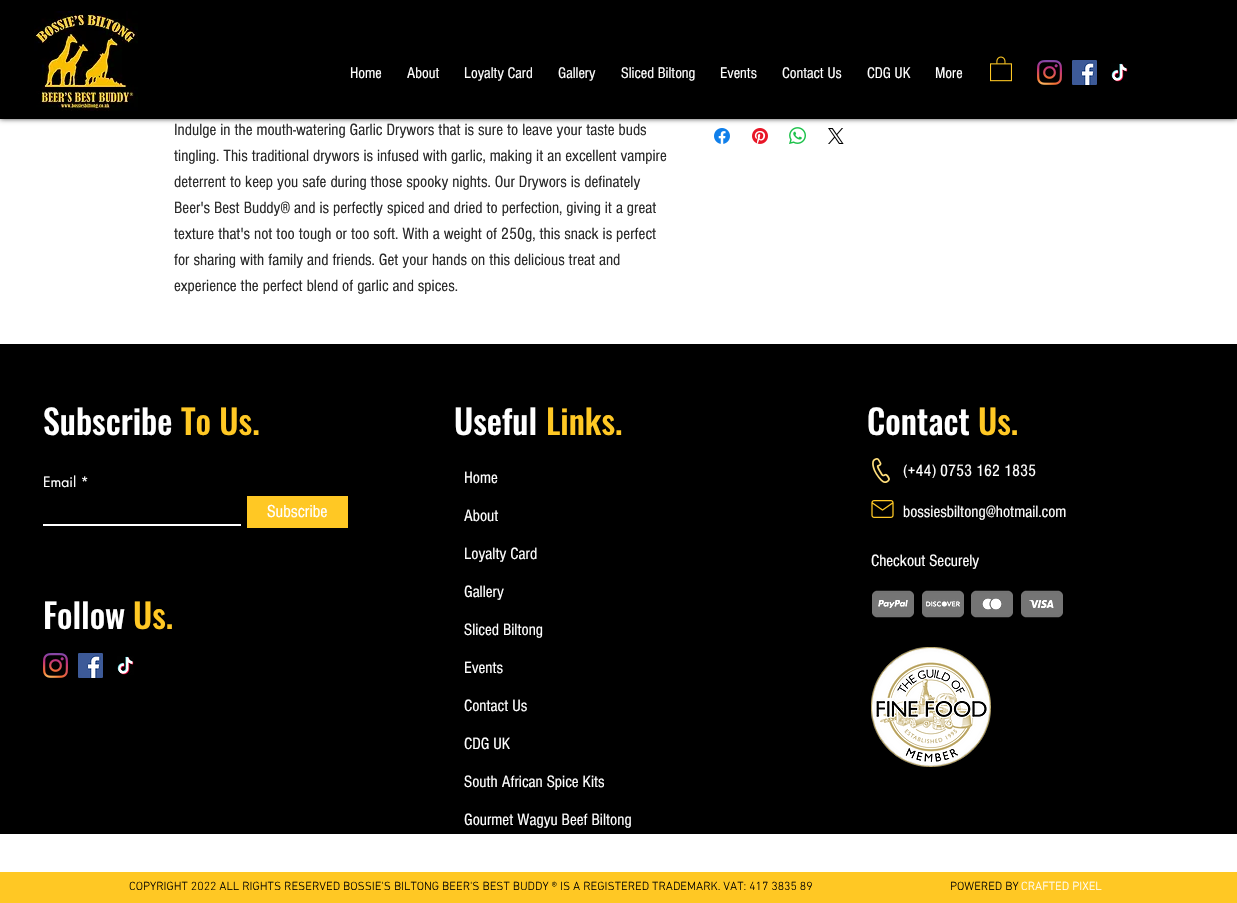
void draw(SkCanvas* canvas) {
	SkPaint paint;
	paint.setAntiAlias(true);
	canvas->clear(0xffffffff);
	canvas->drawImageRect(SkImages::DeferredFromEncodedData(SkData::MakeFromFileName("img8.png")), SkRect::MakeXYWH(789, 127, 17, 17), SkSamplingOptions());
	paint.setColor(0xb3000000);
	paint.setMaskFilter(SkMaskFilter::MakeBlur(kNormal_SkBlurStyle, 2.5));
	canvas->drawRect(SkRect::MakeXYWH(0, 0, 1237, 119), paint);
	paint.setMaskFilter(nullptr);
	paint.setColor(0xff000000);
	canvas->drawRect(SkRect::MakeXYWH(0, 0, 1237, 119), paint);
	canvas->drawImageRect(SkImages::DeferredFromEncodedData(SkData::MakeFromFileName("img1.png")), SkRect::MakeXYWH(34, 11, 104, 100), SkSamplingOptions());
	SkFont f1(fontMgr->matchFamilyStyle("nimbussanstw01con", SkFontStyle::Normal()), 16);
	f1.setSubpixel(true);
	paint.setColor(0xffffffff);
	canvas->drawString("Home", 350, 78, f1, paint);
	canvas->drawString("About", 407, 78, f1, paint);
	canvas->drawString("Loyalty Card", 464, 78, f1, paint);
	canvas->drawString("Gallery", 558, 78, f1, paint);
	canvas->drawString("Sliced Biltong", 621, 78, f1, paint);
	canvas->drawString("Events", 720, 78, f1, paint);
	canvas->drawString("Contact Us", 782, 78, f1, paint);
	canvas->drawString("CDG UK", 867, 78, f1, paint);
	canvas->drawString("More", 935, 78, f1, paint);
	canvas->drawImageRect(SkImages::DeferredFromEncodedData(SkData::MakeFromFileName("img2.png")), SkRect::MakeXYWH(990, 56, 22, 26), SkSamplingOptions());
	canvas->drawImageRect(SkImages::DeferredFromEncodedData(SkData::MakeFromFileName("img3.png")), SkRect::MakeXYWH(1037, 60, 25, 25), SkSamplingOptions());
	canvas->drawImageRect(SkImages::DeferredFromEncodedData(SkData::MakeFromFileName("img4.png")), SkRect::MakeXYWH(1072, 60, 25, 25), SkSamplingOptions());
	canvas->drawImageRect(SkImages::DeferredFromEncodedData(SkData::MakeFromFileName("img5.png")), SkRect::MakeXYWH(1111, 63, 17, 19), SkSamplingOptions());
	SkFont f2(fontMgr->matchFamilyStyle("nimbussanstw01con", SkFontStyle::Normal()), 17);
	f2.setSubpixel(true);
	paint.setColor(0xff2a2a2a);
	canvas->drawString("Indulge in the mouth-watering Garlic Drywors that is sure to leave your taste buds", 174, 135, f2, paint);
	canvas->drawString("tingling. This traditional drywors is infused with garlic, making it an excellent vampire", 174, 161, f2, paint);
	canvas->drawString("deterrent to keep you safe during those spooky nights. Our Drywors is definately", 174, 187, f2, paint);
	canvas->drawString("Beer's Best Buddy® and is perfectly spiced and dried to perfection, giving it a great", 174, 213, f2, paint);
	canvas->drawString("texture that's not too tough or too soft. With a weight of 250g, this snack is perfect", 174, 239, f2, paint);
	canvas->drawString("for sharing with family and friends. Get your hands on this delicious treat and", 174, 265, f2, paint);
	canvas->drawString("experience the perfect blend of garlic and spices.", 174, 291, f2, paint);
	canvas->drawImageRect(SkImages::DeferredFromEncodedData(SkData::MakeFromFileName("img6.png")), SkRect::MakeXYWH(714, 128, 16, 16), SkSamplingOptions());
	canvas->drawImageRect(SkImages::DeferredFromEncodedData(SkData::MakeFromFileName("img7.png")), SkRect::MakeXYWH(752, 128, 16, 16), SkSamplingOptions());
	canvas->drawImageRect(SkImages::DeferredFromEncodedData(SkData::MakeFromFileName("img9.png")), SkRect::MakeXYWH(828, 128, 16, 16), SkSamplingOptions());
	paint.setColor(0xff000000);
	canvas->drawRect(SkRect::MakeXYWH(0, 344, 1237, 490), paint);
	SkFont f3(fontMgr->matchFamilyStyle("Oswald", SkFontStyle(500, SkFontStyle::kNormal_Width, SkFontStyle::kUpright_Slant)), 34);
	f3.setSubpixel(true);
	paint.setColor(0xffffffff);
	canvas->drawString("Subscribe", 43, 435, f3, paint);
	paint.setColor(0xffffc824);
	canvas->drawString("To Us.", 181, 435, f3, paint);
	SkFont f4(fontMgr->matchFamilyStyle("futura", SkFontStyle::Normal()), 14);
	f4.setSubpixel(true);
	paint.setColor(0xffffffff);
	canvas->drawString("Email *", 43, 487, f4, paint);
	canvas->drawRect(SkRect::MakeXYWH(43, 524, 198, 2), paint);
	paint.setColor(0xffffc824);
	canvas->drawRect(SkRect::MakeXYWH(247, 496, 101, 32), paint);
	SkFont f5(fontMgr->matchFamilyStyle("nimbussanstw01con", SkFontStyle::Normal()), 18);
	f5.setSubpixel(true);
	paint.setColor(0xffffffff);
	canvas->drawString("Subscribe", 267, 517, f5, paint);
	canvas->drawString("Follow", 43, 629, f3, paint);
	paint.setColor(0xffffc824);
	canvas->drawString("Us.", 133, 629, f3, paint);
	canvas->drawImageRect(SkImages::DeferredFromEncodedData(SkData::MakeFromFileName("img3.png")), SkRect::MakeXYWH(43, 653, 25, 25), SkSamplingOptions());
	canvas->drawImageRect(SkImages::DeferredFromEncodedData(SkData::MakeFromFileName("img4.png")), SkRect::MakeXYWH(78, 653, 25, 25), SkSamplingOptions());
	canvas->drawImageRect(SkImages::DeferredFromEncodedData(SkData::MakeFromFileName("img5.png")), SkRect::MakeXYWH(117, 656, 17, 19), SkSamplingOptions());
	paint.setColor(0xffffffff);
	canvas->drawString("Useful", 454, 435, f3, paint);
	paint.setColor(0xffffc824);
	canvas->drawString("Links.", 546, 435, f3, paint);
	paint.setColor(0xffffffff);
	canvas->drawString("Contact", 867, 435, f3, paint);
	paint.setColor(0xffffc824);
	canvas->drawString("Us.", 978, 435, f3, paint);
	paint.setColor(0xffffffff);
	canvas->drawString("(+44) 0753 162 1835", 903, 476, f2, paint);
	canvas->drawImageRect(SkImages::DeferredFromEncodedData(SkData::MakeFromFileName("img10.png")), SkRect::MakeXYWH(871, 500, 23, 18), SkSamplingOptions());
	canvas->drawImageRect(SkImages::DeferredFromEncodedData(SkData::MakeFromFileName("img11.png")), SkRect::MakeXYWH(872, 458, 18, 25), SkSamplingOptions());
	canvas->drawString("bossiesbiltong@hotmail.com", 903, 517, f2, paint);
	canvas->drawString("Checkout Securely", 871, 566, f2, paint);
	canvas->drawImageRect(SkImages::DeferredFromEncodedData(SkData::MakeFromFileName("img12.png")), SkRect::MakeXYWH(872, 590, 42, 28), SkSamplingOptions());
	canvas->drawImageRect(SkImages::DeferredFromEncodedData(SkData::MakeFromFileName("img13.png")), SkRect::MakeXYWH(922, 590, 42, 28), SkSamplingOptions());
	canvas->drawImageRect(SkImages::DeferredFromEncodedData(SkData::MakeFromFileName("img14.png")), SkRect::MakeXYWH(971, 590, 42, 28), SkSamplingOptions());
	canvas->drawImageRect(SkImages::DeferredFromEncodedData(SkData::MakeFromFileName("img15.png")), SkRect::MakeXYWH(1021, 590, 42, 28), SkSamplingOptions());
	canvas->drawImageRect(SkImages::DeferredFromEncodedData(SkData::MakeFromFileName("img16.png")), SkRect::MakeXYWH(871, 647, 120, 120), SkSamplingOptions());
	canvas->drawString("Home", 464, 483, f2, paint);
	canvas->drawString("About", 464, 521, f2, paint);
	canvas->drawString("Loyalty Card", 464, 559, f2, paint);
	canvas->drawString("Gallery", 464, 597, f2, paint);
	canvas->drawString("Sliced Biltong", 464, 635, f2, paint);
	canvas->drawString("Events", 464, 673, f2, paint);
	canvas->drawString("Contact Us", 464, 711, f2, paint);
	canvas->drawString("CDG UK", 464, 749, f2, paint);
	canvas->drawString("South African Spice Kits", 464, 787, f2, paint);
	canvas->drawString("Gourmet Wagyu Beef Biltong", 464, 825, f2, paint);
	paint.setColor(0xffffc824);
	canvas->drawRect(SkRect::MakeXYWH(0, 872, 1237, 31), paint);
	SkFont f6(fontMgr->matchFamilyStyle("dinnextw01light", SkFontStyle(300, SkFontStyle::kNormal_Width, SkFontStyle::kUpright_Slant)), 12);
	f6.setSubpixel(true);
	paint.setColor(0xff000000);
	canvas->drawString("COPYRIGHT 2022 ALL RIGHTS RESERVED BOSSIE'S BILTONG BEER'S BEST BUDDY ® IS A REGISTERED TRADEMARK. VAT: 417 3835 89", 129, 890, f6, paint);
	canvas->drawString("POWERED BY", 950, 890, f6, paint);
	paint.setColor(0xffffffff);
	canvas->drawString("CRAFTED PIXEL", 1021, 890, f6, paint);
}
